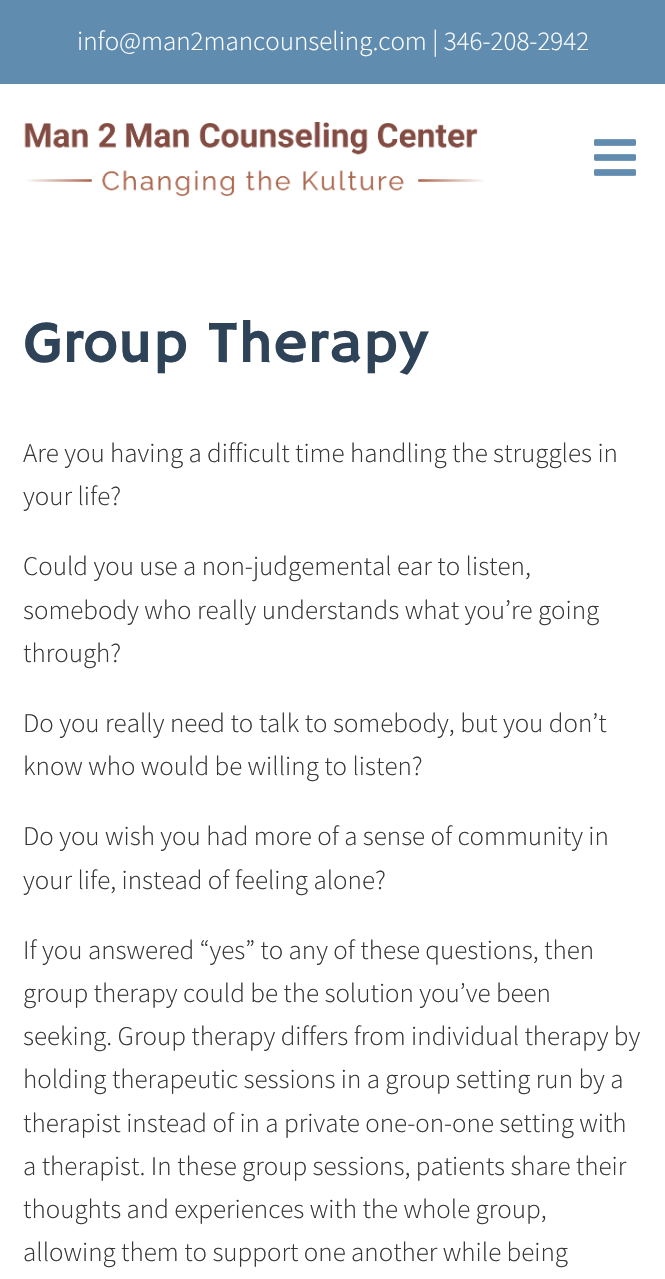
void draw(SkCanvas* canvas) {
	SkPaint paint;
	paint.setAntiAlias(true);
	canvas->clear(0xffffffff);
	paint.setColor(0xff608cb0);
	canvas->drawRect(SkRect::MakeXYWH(0, 0, 665, 84), paint);
	SkFont f1(fontMgr->matchFamilyStyle("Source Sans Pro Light", SkFontStyle(300, SkFontStyle::kNormal_Width, SkFontStyle::kUpright_Slant)), 27);
	f1.setSubpixel(true);
	paint.setColor(0xffffffff);
	canvas->drawString("info@man2mancounseling.com | 346-208-2942", 77, 50, f1, paint);
	canvas->drawImageRect(SkImages::DeferredFromEncodedData(SkData::MakeFromFileName("img1.png")), SkRect::MakeXYWH(24, 122, 460, 74), SkSamplingOptions());
	canvas->drawImageRect(SkImages::DeferredFromEncodedData(SkData::MakeFromFileName("img2.png")), SkRect::MakeXYWH(594, 139, 42, 37), SkSamplingOptions());
	SkFont f2(fontMgr->matchFamilyStyle("Hammersmith One", SkFontStyle::Normal()), 60);
	f2.setSubpixel(true);
	paint.setColor(0xff2f4358);
	canvas->drawString("Group Therapy", 23, 362, f2, paint);
	paint.setColor(0xff363636);
	canvas->drawString("Are you having a difficult time handling the struggles in", 23, 462, f1, paint);
	canvas->drawString("your life?", 23, 505, f1, paint);
	canvas->drawString("Could you use a non-judgemental ear to listen,", 23, 575, f1, paint);
	canvas->drawString("somebody who really understands what you’re going", 23, 619, f1, paint);
	canvas->drawString("through?", 23, 662, f1, paint);
	canvas->drawString("Do you really need to talk to somebody, but you don’t", 23, 732, f1, paint);
	canvas->drawString("know who would be willing to listen?", 23, 775, f1, paint);
	canvas->drawString("Do you wish you had more of a sense of community in", 23, 845, f1, paint);
	canvas->drawString("your life, instead of feeling alone?", 23, 889, f1, paint);
	canvas->drawString("If you answered “yes” to any of these questions, then", 23, 959, f1, paint);
	canvas->drawString("group therapy could be the solution you’ve been", 23, 1002, f1, paint);
	canvas->drawString("seeking. Group therapy differs from individual therapy by", 23, 1045, f1, paint);
	canvas->drawString("holding therapeutic sessions in a group setting run by a", 23, 1088, f1, paint);
	canvas->drawString("therapist instead of in a private one-on-one setting with", 23, 1132, f1, paint);
	canvas->drawString("a therapist. In these group sessions, patients share their", 23, 1175, f1, paint);
	canvas->drawString("thoughts and experiences with the whole group,", 23, 1218, f1, paint);
	canvas->drawString("allowing them to support one another while being", 23, 1261, f1, paint);
}
